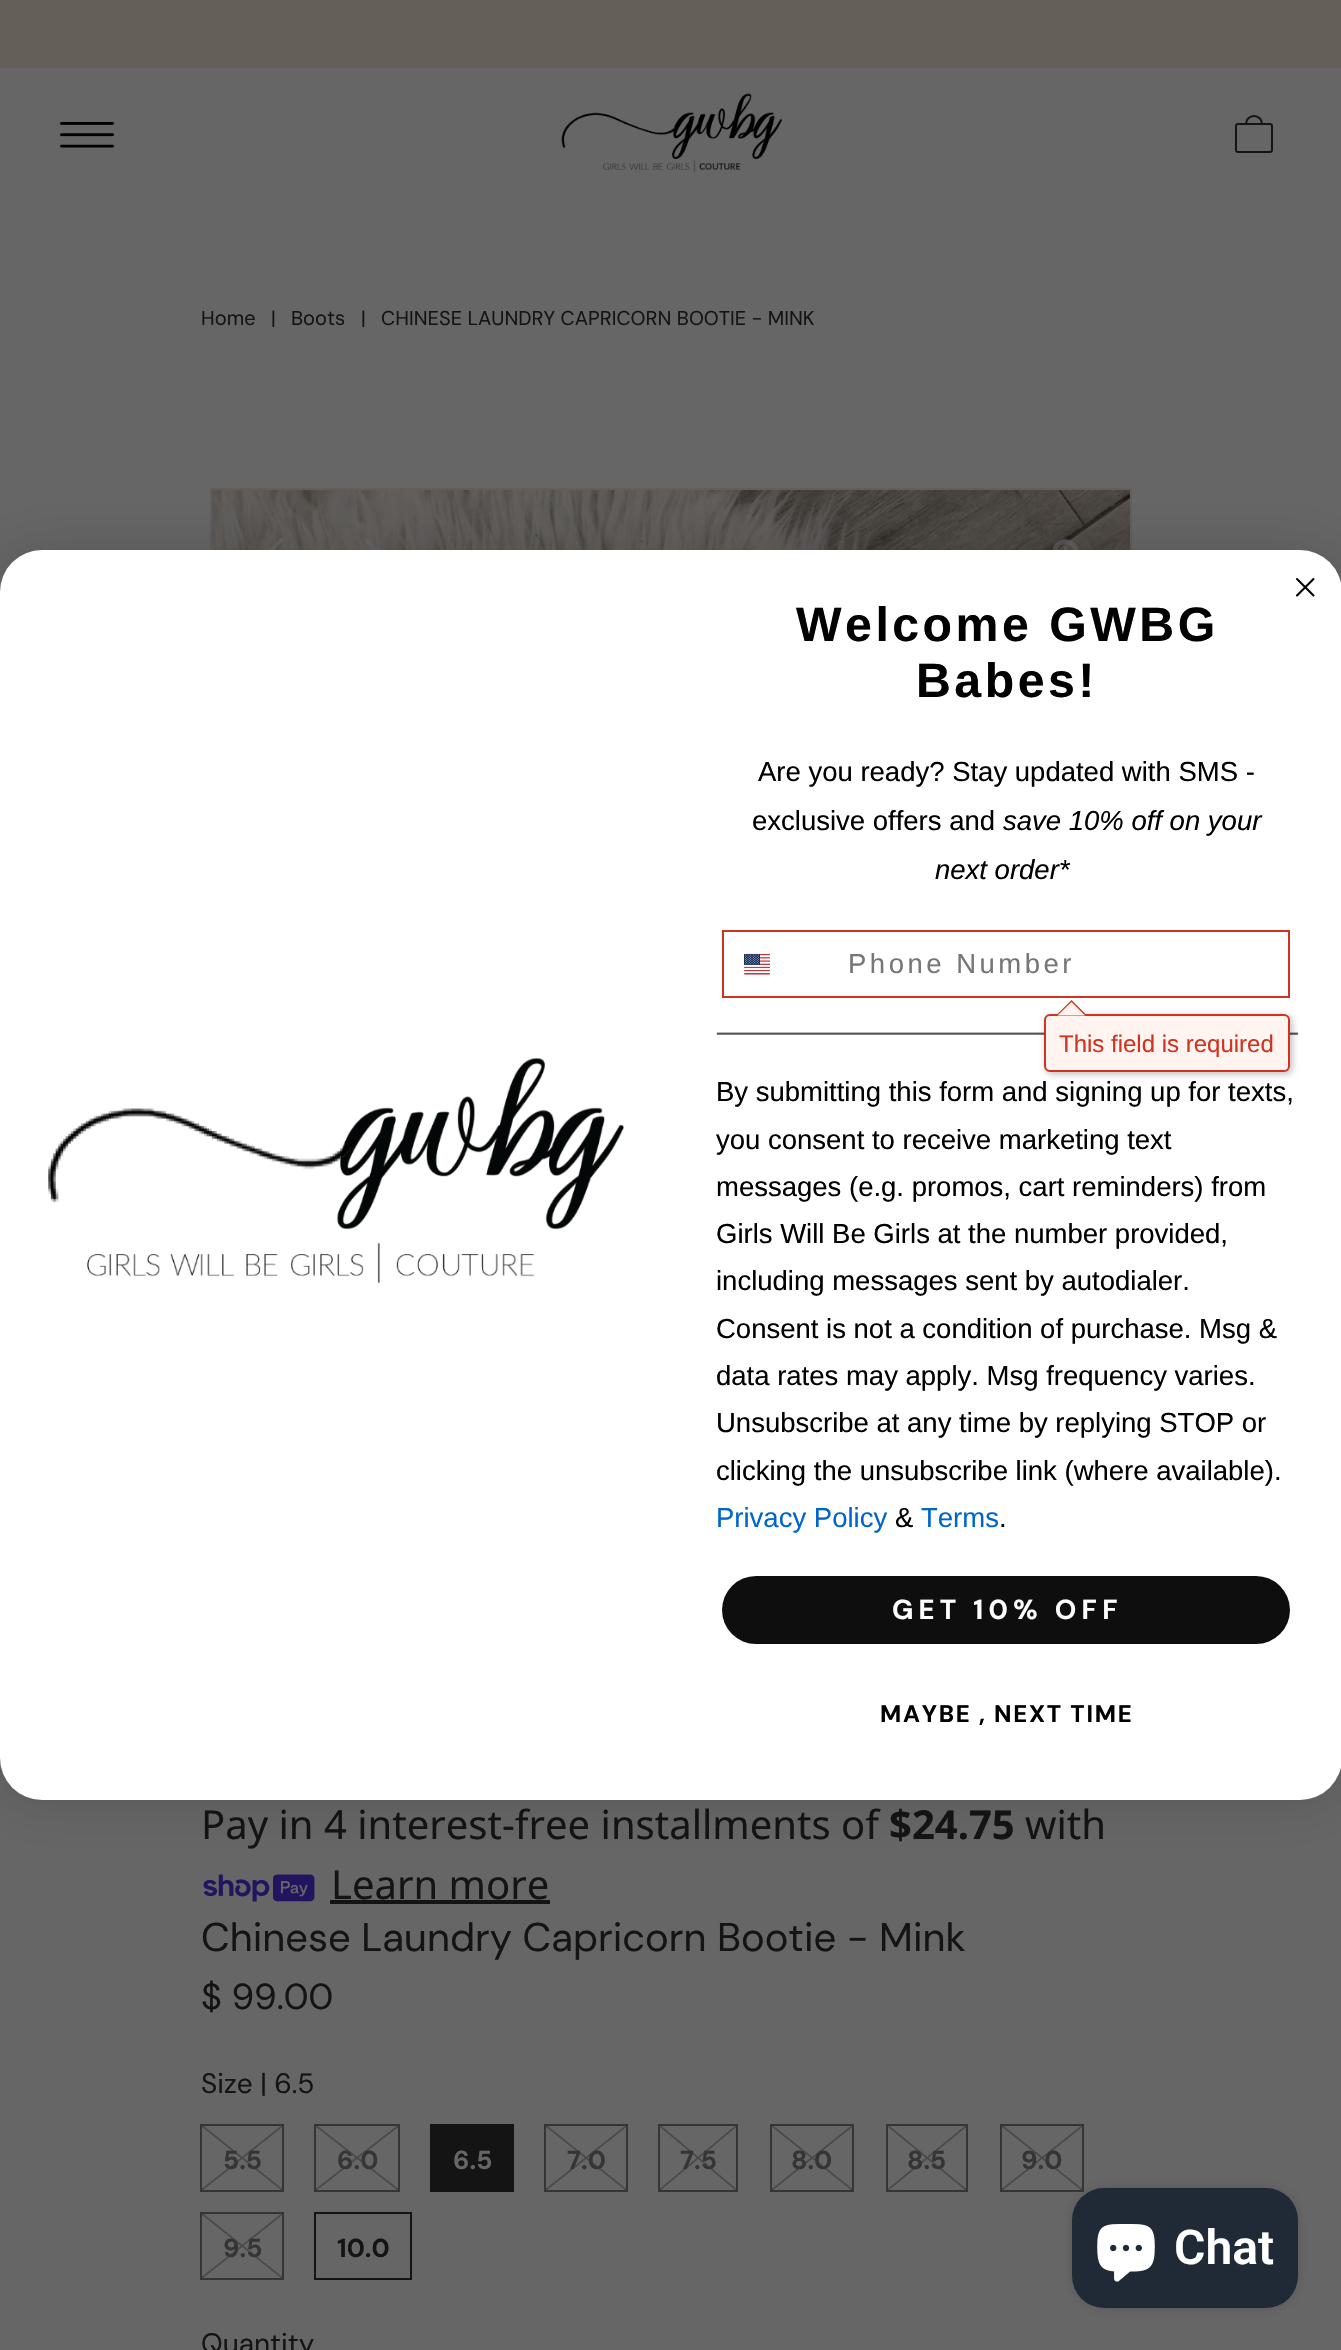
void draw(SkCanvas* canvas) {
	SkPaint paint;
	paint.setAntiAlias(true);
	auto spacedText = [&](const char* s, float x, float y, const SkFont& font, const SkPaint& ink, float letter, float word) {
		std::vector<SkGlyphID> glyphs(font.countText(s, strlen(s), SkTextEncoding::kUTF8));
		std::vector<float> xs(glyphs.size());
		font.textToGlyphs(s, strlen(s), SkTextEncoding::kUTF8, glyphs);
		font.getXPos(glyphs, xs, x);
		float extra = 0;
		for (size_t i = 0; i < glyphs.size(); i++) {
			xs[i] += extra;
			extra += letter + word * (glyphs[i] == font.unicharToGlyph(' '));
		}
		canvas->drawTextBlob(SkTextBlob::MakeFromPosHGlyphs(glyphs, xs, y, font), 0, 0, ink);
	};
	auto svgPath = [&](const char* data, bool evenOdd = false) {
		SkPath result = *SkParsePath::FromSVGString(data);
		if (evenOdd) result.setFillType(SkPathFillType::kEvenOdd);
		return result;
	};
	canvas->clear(0xff666666);
	paint.setColor(0xff646059);
	canvas->drawRect(SkRect::MakeXYWH(0, 0, 1341, 68), paint);
	canvas->drawImageRect(SkImages::DeferredFromEncodedData(SkData::MakeFromFileName("img1.png")), SkRect::MakeXYWH(60, 122, 54, 26), SkSamplingOptions());
	canvas->drawImageRect(SkImages::DeferredFromEncodedData(SkData::MakeFromFileName("img2.png")), SkRect::MakeXYWH(561, 93, 222, 80), SkSamplingOptions());
	paint.setStroke(true);
	paint.setStrokeWidth(2);
	paint.setColor(0xff141414);
	canvas->drawPath(svgPath("M1254 116C1258.5 116 1262 119.5 1262 124H1246C1246 119.5 1249.5 116 1254 116Z"), paint);
	canvas->drawRoundRect(SkRect::MakeXYWH(1236, 124, 36, 28), 2, 2, paint);
	SkFont f1(fontMgr->matchFamilyStyle("DM Sans", SkFontStyle::Normal()), 20);
	f1.setSubpixel(true);
	paint.setStroke(false);
	canvas->drawString("Home", 201, 325, f1, paint);
	canvas->drawString("|", 271, 325, f1, paint);
	canvas->drawString("Boots", 291, 325, f1, paint);
	canvas->drawString("|", 361, 325, f1, paint);
	canvas->drawString("CHINESE LAUNDRY CAPRICORN BOOTIE - MINK", 381, 325, f1, paint);
	paint.setStroke(true);
	paint.setColor(0xff5f5f5f);
	canvas->drawRect(SkRect::MakeXYWH(211, 489, 920, 1222), paint);
	canvas->drawImageRect(SkImages::DeferredFromEncodedData(SkData::MakeFromFileName("img3.png")), SkRect::MakeXYWH(212, 490, 918, 60), SkSamplingOptions());
	canvas->drawImageRect(SkImages::DeferredFromEncodedData(SkData::MakeFromFileName("img4.png")), SkRect::MakeXYWH(1052, 539, 27, 11), SkSamplingOptions());
	canvas->drawImageRect(SkImages::DeferredFromEncodedData(SkData::MakeFromFileName("img5.png")), SkRect::MakeXYWH(269, 538, 15, 12), SkSamplingOptions());
	canvas->drawImageRect(SkImages::DeferredFromEncodedData(SkData::MakeFromFileName("img6.png")), SkRect::MakeXYWH(364, 538, 15, 12), SkSamplingOptions());
	SkFont f2(fontMgr->matchFamilyStyle("Noto Sans", SkFontStyle::Normal()), 40);
	f2.setSubpixel(true);
	paint.setStroke(false);
	paint.setColor(0xff141414);
	canvas->drawString("Pay in 4 interest-free installments of", 201, 1839, f2, paint);
	SkFont f3(fontMgr->matchFamilyStyle("Noto Sans", SkFontStyle::Bold()), 40);
	f3.setSubpixel(true);
	canvas->drawString("$24.75", 889, 1839, f3, paint);
	canvas->drawString("with", 1025, 1839, f2, paint);
	canvas->drawImageRect(SkImages::DeferredFromEncodedData(SkData::MakeFromFileName("img7.png")), SkRect::MakeXYWH(203, 1874, 112, 28), SkSamplingOptions());
	canvas->drawString("Learn more", 331, 1899, f2, paint);
	canvas->drawRect(SkRect::MakeXYWH(330, 1900, 220, 4), paint);
	SkFont f4(fontMgr->matchFamilyStyle("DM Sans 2", SkFontStyle::Normal()), 40);
	f4.setSubpixel(true);
	canvas->drawString("Chinese Laundry Capricorn Bootie - Mink", 201, 1951, f4, paint);
	SkFont f5(fontMgr->matchFamilyStyle("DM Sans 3", SkFontStyle::Normal()), 36);
	f5.setSubpixel(true);
	canvas->drawString("$ 99.00", 201, 2009, f5, paint);
	SkFont f6(fontMgr->matchFamilyStyle("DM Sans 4", SkFontStyle::Normal()), 28);
	f6.setSubpixel(true);
	canvas->drawString("Size | 6.5", 201, 2093, f6, paint);
	paint.setStroke(true);
	paint.setColor(0xff353535);
	canvas->drawRect(SkRect::MakeXYWH(201, 2125, 82, 66), paint);
	SkFont f7(fontMgr->matchFamilyStyle("DM Sans", SkFontStyle::Bold()), 26);
	f7.setSubpixel(true);
	paint.setStroke(false);
	canvas->drawString("5.5", 223, 2169, f7, paint);
	canvas->drawImageRect(SkImages::DeferredFromEncodedData(SkData::MakeFromFileName("img8.png")), SkRect::MakeXYWH(202, 2126, 80, 64), SkSamplingOptions());
	paint.setStroke(true);
	canvas->drawRect(SkRect::MakeXYWH(315, 2125, 84, 66), paint);
	paint.setStroke(false);
	canvas->drawString("6.0", 337, 2169, f7, paint);
	canvas->drawImageRect(SkImages::DeferredFromEncodedData(SkData::MakeFromFileName("img9.png")), SkRect::MakeXYWH(316, 2126, 82, 64), SkSamplingOptions());
	paint.setColor(0xff141414);
	canvas->drawRect(SkRect::MakeXYWH(430, 2124, 84, 68), paint);
	paint.setColor(0xff666666);
	canvas->drawString("6.5", 453, 2169, f7, paint);
	paint.setStroke(true);
	paint.setColor(0xff353535);
	canvas->drawRect(SkRect::MakeXYWH(545, 2125, 82, 66), paint);
	paint.setStroke(false);
	canvas->drawString("7.0", 567, 2169, f7, paint);
	canvas->drawImageRect(SkImages::DeferredFromEncodedData(SkData::MakeFromFileName("img10.png")), SkRect::MakeXYWH(546, 2126, 80, 64), SkSamplingOptions());
	paint.setStroke(true);
	canvas->drawRect(SkRect::MakeXYWH(659, 2125, 78, 66), paint);
	paint.setStroke(false);
	canvas->drawString("7.5", 680, 2169, f7, paint);
	canvas->drawImageRect(SkImages::DeferredFromEncodedData(SkData::MakeFromFileName("img11.png")), SkRect::MakeXYWH(660, 2126, 76, 64), SkSamplingOptions());
	paint.setStroke(true);
	canvas->drawRect(SkRect::MakeXYWH(771, 2125, 82, 66), paint);
	paint.setStroke(false);
	canvas->drawString("8.0", 791, 2169, f7, paint);
	canvas->drawImageRect(SkImages::DeferredFromEncodedData(SkData::MakeFromFileName("img12.png")), SkRect::MakeXYWH(772, 2126, 80, 64), SkSamplingOptions());
	paint.setStroke(true);
	canvas->drawRect(SkRect::MakeXYWH(887, 2125, 80, 66), paint);
	paint.setStroke(false);
	canvas->drawString("8.5", 907, 2169, f7, paint);
	canvas->drawImageRect(SkImages::DeferredFromEncodedData(SkData::MakeFromFileName("img13.png")), SkRect::MakeXYWH(888, 2126, 78, 64), SkSamplingOptions());
	paint.setStroke(true);
	canvas->drawRect(SkRect::MakeXYWH(1001, 2125, 82, 66), paint);
	paint.setStroke(false);
	canvas->drawString("9.0", 1021, 2169, f7, paint);
	canvas->drawImageRect(SkImages::DeferredFromEncodedData(SkData::MakeFromFileName("img14.png")), SkRect::MakeXYWH(1002, 2126, 80, 64), SkSamplingOptions());
	paint.setStroke(true);
	canvas->drawRect(SkRect::MakeXYWH(201, 2213, 82, 66), paint);
	paint.setStroke(false);
	canvas->drawString("9.5", 223, 2257, f7, paint);
	canvas->drawImageRect(SkImages::DeferredFromEncodedData(SkData::MakeFromFileName("img15.png")), SkRect::MakeXYWH(202, 2214, 80, 64), SkSamplingOptions());
	paint.setStroke(true);
	paint.setColor(0xff141414);
	canvas->drawRect(SkRect::MakeXYWH(315, 2213, 96, 66), paint);
	paint.setStroke(false);
	canvas->drawString("10.0", 337, 2257, f7, paint);
	canvas->drawString("Quantity", 201, 2353, f6, paint);
	paint.setColor(0x26000000);
	paint.setMaskFilter(SkMaskFilter::MakeBlur(kNormal_SkBlurStyle, 26));
	canvas->drawRoundRect(SkRect::MakeXYWH(0, 550, 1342, 1250), 42, 42, paint);
	paint.setMaskFilter(nullptr);
	paint.setColor(0xffffffff);
	canvas->drawRoundRect(SkRect::MakeXYWH(0, 550, 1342, 1250), 42, 42, paint);
	paint.setStroke(true);
	paint.setStrokeWidth(2.1);
	paint.setStrokeCap(SkPaint::kRound_Cap);
	paint.setStrokeJoin(SkPaint::kRound_Join);
	paint.setColor(0xff000000);
	canvas->drawPath(svgPath("M1297 579L1313.5 595.5M1297 595.5L1313.5 579Z"), paint);
	canvas->drawImageRect(SkImages::DeferredFromEncodedData(SkData::MakeFromFileName("img16.png")), SkRect::MakeXYWH(48, 1058, 576, 226), SkSamplingOptions());
	SkFont f8(fontMgr->matchFamilyStyle("Liberation Sans", SkFontStyle::Bold()), 48.25);
	f8.setSubpixel(true);
	paint.setStroke(false);
	spacedText("Welcome GWBG", 796, 641, f8, paint, 3.5, 0);
	spacedText("Babes!", 916, 697, f8, paint, 3.5, 0);
	SkFont f9(fontMgr->matchFamilyStyle("Liberation Sans", SkFontStyle::Normal()), 27.5);
	f9.setSubpixel(true);
	canvas->drawString("Are you ready? Stay updated with SMS -", 758, 781, f9, paint);
	canvas->drawString("exclusive offers and", 752, 830, f9, paint);
	SkFont f10(fontMgr->matchFamilyStyle("Liberation Sans", SkFontStyle::Italic()), 27.5);
	f10.setSubpixel(true);
	canvas->drawString("save 10% off on your", 1003, 830, f10, paint);
	canvas->drawString("next order*", 935, 879, f10, paint);
	paint.setStroke(true);
	paint.setStrokeWidth(2);
	paint.setStrokeCap(SkPaint::kButt_Cap);
	paint.setStrokeJoin(SkPaint::kMiter_Join);
	paint.setColor(0xffd0331f);
	canvas->drawRect(SkRect::MakeXYWH(723, 931, 566, 66), paint);
	canvas->drawImageRect(SkImages::DeferredFromEncodedData(SkData::MakeFromFileName("img17.png")), SkRect::MakeXYWH(744, 953, 26, 22), SkSamplingOptions());
	paint.setStroke(false);
	paint.setColor(0xff767676);
	spacedText("Phone Number", 848, 973, f9, paint, 3.5, 0);
	canvas->drawImageRect(SkImages::DeferredFromEncodedData(SkData::MakeFromFileName("img18.png")), SkRect::MakeXYWH(716, 1032, 583, 3), SkSamplingOptions());
	paint.setColor(0x42000000);
	paint.setMaskFilter(SkMaskFilter::MakeBlur(kNormal_SkBlurStyle, 3.5));
	canvas->drawRoundRect(SkRect::MakeXYWH(1046, 1016, 246, 58), 6, 6, paint);
	paint.setMaskFilter(nullptr);
	paint.setColor(0xfffff4f0);
	canvas->drawRoundRect(SkRect::MakeXYWH(1045, 1015, 244, 56), 5, 5, paint);
	paint.setStroke(true);
	paint.setColor(0xffd0331f);
	canvas->drawRoundRect(SkRect::MakeXYWH(1045, 1015, 244, 56), 5, 5, paint);
	paint.setStroke(false);
	canvas->drawPath(svgPath("M1087 1015.5H1056L1071.5 1000Z"), paint);
	paint.setColor(0xfffff4f0);
	canvas->drawPath(svgPath("M1085 1015.5H1057.5L1071.5 1002Z"), paint);
	SkFont f11(fontMgr->matchFamilyStyle("Liberation Sans", SkFontStyle::Normal()), 24);
	f11.setSubpixel(true);
	paint.setColor(0xffd0331f);
	canvas->drawString("This field is required", 1059, 1052, f11, paint);
	paint.setColor(0xff000000);
	canvas->drawString("By submitting this form and signing up for texts,", 716, 1101, f9, paint);
	canvas->drawString("you consent to receive marketing text", 716, 1149, f9, paint);
	canvas->drawString("messages (e.g. promos, cart reminders) from", 716, 1196, f9, paint);
	canvas->drawString("Girls Will Be Girls at the number provided,", 716, 1243, f9, paint);
	canvas->drawString("including messages sent by autodialer.", 716, 1290, f9, paint);
	canvas->drawString("Consent is not a condition of purchase. Msg &", 716, 1338, f9, paint);
	canvas->drawString("data rates may apply. Msg frequency varies.", 716, 1385, f9, paint);
	canvas->drawString("Unsubscribe at any time by replying STOP or", 716, 1432, f9, paint);
	canvas->drawString("clicking the unsubscribe link (where available).", 716, 1480, f9, paint);
	paint.setColor(0xff0066cc);
	canvas->drawString("Privacy Policy", 716, 1527, f9, paint);
	paint.setColor(0xff000000);
	canvas->drawString("&", 895, 1527, f9, paint);
	paint.setColor(0xff0066cc);
	canvas->drawString("Terms", 921, 1527, f9, paint);
	paint.setColor(0xff000000);
	canvas->drawString(".", 999, 1527, f9, paint);
	paint.setColor(0xff0e0e0e);
	canvas->drawRoundRect(SkRect::MakeXYWH(722, 1576, 568, 68), 34, 34, paint);
	SkFont f12(fontMgr->matchFamilyStyle("DM Sans 2", SkFontStyle::Bold()), 27.5);
	f12.setSubpixel(true);
	paint.setColor(0xffffffff);
	spacedText("GET 10% OFF", 892, 1619, f12, paint, 5.25, 0);
	SkFont f13(fontMgr->matchFamilyStyle("DM Sans 3", SkFontStyle::Bold()), 24);
	f13.setSubpixel(true);
	paint.setColor(0xff000000);
	spacedText("MAYBE , NEXT TIME", 880, 1722, f13, paint, 1.75, 0);
	paint.setColor(0x26000000);
	paint.setMaskFilter(SkMaskFilter::MakeBlur(kNormal_SkBlurStyle, 5));
	canvas->drawRoundRect(SkRect::MakeXYWH(1072, 2188, 226, 120), 32, 32, paint);
	paint.setMaskFilter(nullptr);
	paint.setColor(0xff202a36);
	canvas->drawRoundRect(SkRect::MakeXYWH(1072, 2188, 226, 120), 32, 32, paint);
	canvas->drawImageRect(SkImages::DeferredFromEncodedData(SkData::MakeFromFileName("img19.png")), SkRect::MakeXYWH(1097, 2224, 58, 58), SkSamplingOptions());
	SkFont f14(fontMgr->matchFamilyStyle("Roboto", SkFontStyle(600, SkFontStyle::kNormal_Width, SkFontStyle::kUpright_Slant)), 48);
	f14.setSubpixel(true);
	paint.setColor(0xffffffff);
	canvas->drawString("Chat", 1174, 2264, f14, paint);
}
